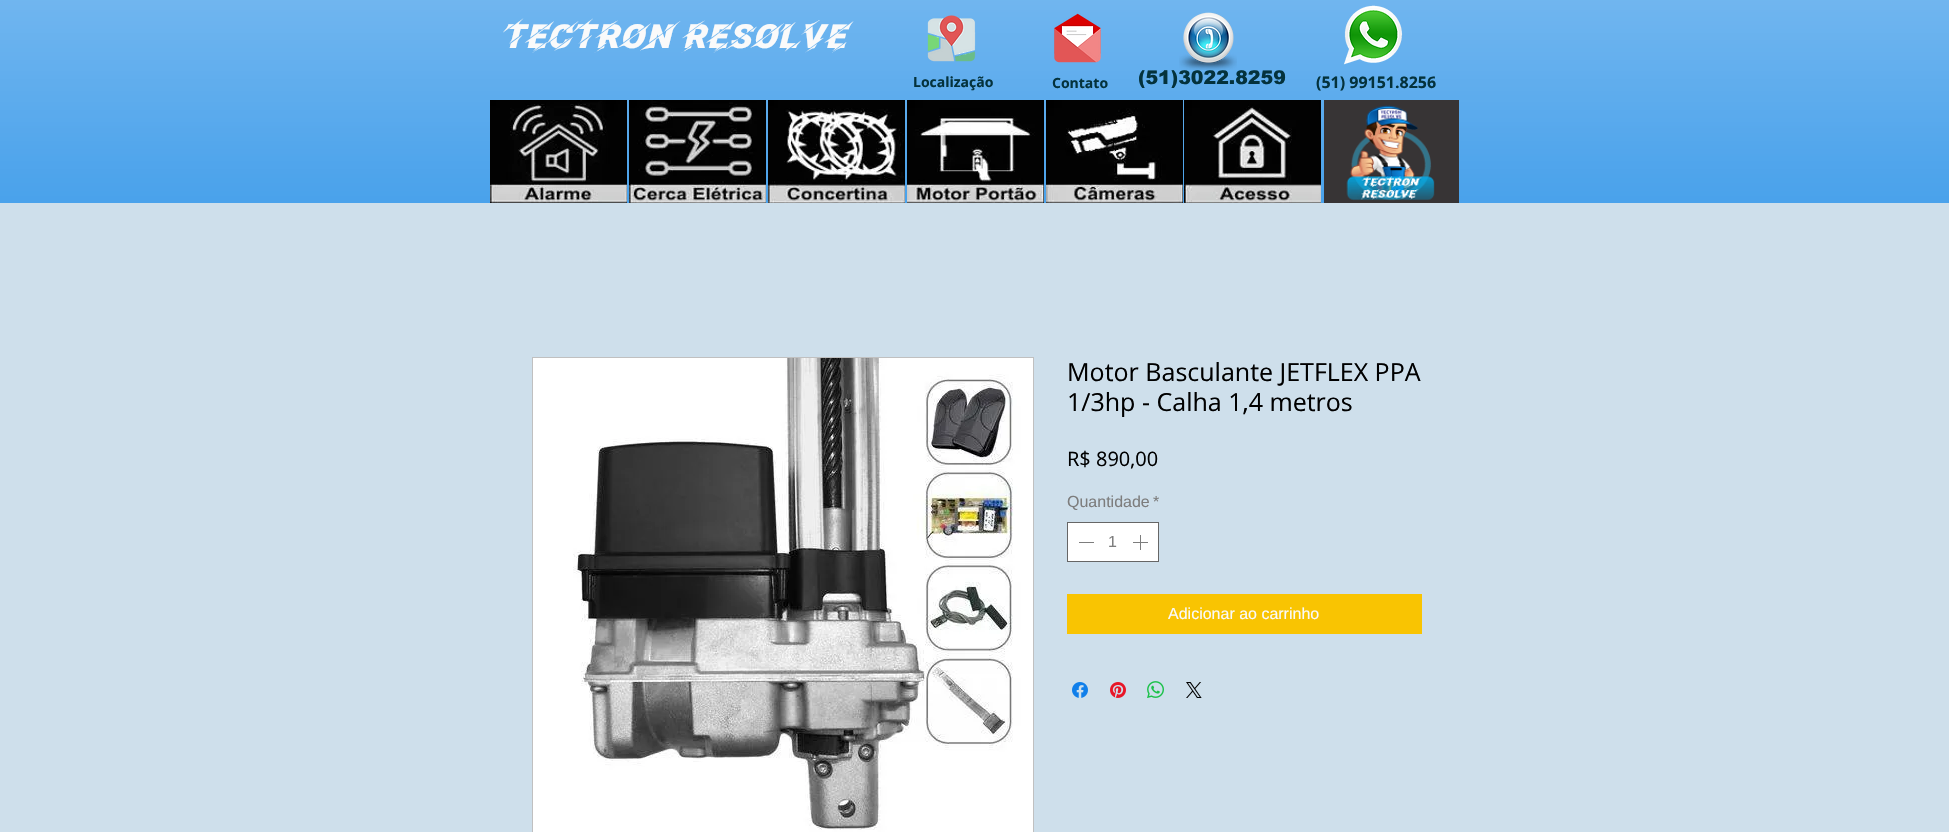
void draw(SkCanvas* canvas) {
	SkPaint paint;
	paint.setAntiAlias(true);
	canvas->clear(0xffcedfeb);
	paint.setColor(0xff3e9cea);
	canvas->drawRect(SkRect::MakeXYWH(0, 0, 1949, 203), paint);
	canvas->drawImageRect(SkImages::DeferredFromEncodedData(SkData::MakeFromFileName("img2.png")), SkRect::MakeXYWH(0, 0, 1949, 203), SkSamplingOptions());
	canvas->drawImageRect(SkImages::DeferredFromEncodedData(SkData::MakeFromFileName("img1.png")), SkRect::MakeXYWH(1343, 5, 60, 60), SkSamplingOptions());
	SkFont f1(fontMgr->matchFamilyStyle("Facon", SkFontStyle::BoldItalic()), 33);
	f1.setSubpixel(true);
	paint.setColor(0xfffafafa);
	canvas->drawString("TECTRON RESOLVE", 503, 48, f1, paint);
	canvas->drawImageRect(SkImages::DeferredFromEncodedData(SkData::MakeFromFileName("img3.png")), SkRect::MakeXYWH(927, 15, 49, 47), SkSamplingOptions());
	SkFont f2(fontMgr->matchFamilyStyle("Open Sans", SkFontStyle::Bold()), 14);
	f2.setSubpixel(true);
	paint.setColor(0xff04323c);
	canvas->drawString("Localização", 913, 87, f2, paint);
	canvas->drawImageRect(SkImages::DeferredFromEncodedData(SkData::MakeFromFileName("img4.png")), SkRect::MakeXYWH(1054, 13, 47, 50), SkSamplingOptions());
	canvas->drawString("Contato", 1052, 88, f2, paint);
	canvas->drawImageRect(SkImages::DeferredFromEncodedData(SkData::MakeFromFileName("img5.png")), SkRect::MakeXYWH(1179, 12, 58, 58), SkSamplingOptions());
	SkFont f3(fontMgr->matchFamilyStyle("arial", SkFontStyle(900, SkFontStyle::kNormal_Width, SkFontStyle::kUpright_Slant)), 19);
	f3.setSubpixel(true);
	canvas->drawString("(51)3022.8259", 1138, 84, f3, paint);
	SkFont f4(fontMgr->matchFamilyStyle("Open Sans", SkFontStyle::Bold()), 16);
	f4.setSubpixel(true);
	canvas->drawString("(51) 99151.8256", 1316, 88, f4, paint);
	canvas->drawImageRect(SkImages::DeferredFromEncodedData(SkData::MakeFromFileName("img6.png")), SkRect::MakeXYWH(490, 100, 137, 103), SkSamplingOptions());
	canvas->drawImageRect(SkImages::DeferredFromEncodedData(SkData::MakeFromFileName("img7.png")), SkRect::MakeXYWH(629, 100, 137, 103), SkSamplingOptions());
	canvas->drawImageRect(SkImages::DeferredFromEncodedData(SkData::MakeFromFileName("img8.png")), SkRect::MakeXYWH(768, 100, 137, 103), SkSamplingOptions());
	canvas->drawImageRect(SkImages::DeferredFromEncodedData(SkData::MakeFromFileName("img9.png")), SkRect::MakeXYWH(907, 100, 137, 103), SkSamplingOptions());
	canvas->drawImageRect(SkImages::DeferredFromEncodedData(SkData::MakeFromFileName("img10.png")), SkRect::MakeXYWH(1046, 100, 137, 103), SkSamplingOptions());
	canvas->drawImageRect(SkImages::DeferredFromEncodedData(SkData::MakeFromFileName("img11.png")), SkRect::MakeXYWH(1184, 100, 137, 103), SkSamplingOptions());
	canvas->drawImageRect(SkImages::DeferredFromEncodedData(SkData::MakeFromFileName("img12.png")), SkRect::MakeXYWH(1324, 100, 135, 103), SkSamplingOptions());
	paint.setStroke(true);
	paint.setStrokeWidth(1);
	paint.setColor(0xffc0c0c0);
	canvas->drawRect(SkRect::MakeXYWH(532.5, 357.5, 501, 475), paint);
	canvas->drawImageRect(SkImages::DeferredFromEncodedData(SkData::MakeFromFileName("img13.png")), SkRect::MakeXYWH(533, 358, 500, 474), SkSamplingOptions());
	SkFont f5(fontMgr->matchFamilyStyle("Open Sans", SkFontStyle::Normal()), 25);
	f5.setSubpixel(true);
	paint.setStroke(false);
	paint.setColor(0xff000000);
	canvas->drawString("Motor Basculante JETFLEX PPA", 1067, 381, f5, paint);
	canvas->drawString("1/3hp - Calha 1,4 metros", 1067, 411, f5, paint);
	SkFont f6(fontMgr->matchFamilyStyle("Open Sans", SkFontStyle::Normal()), 20);
	f6.setSubpixel(true);
	canvas->drawString("R$ 890,00", 1067, 466, f6, paint);
	SkFont f7(fontMgr->matchFamilyStyle("Liberation Sans", SkFontStyle::Normal()), 16);
	f7.setSubpixel(true);
	paint.setColor(0xff7d7d7d);
	canvas->drawString("Quantidade", 1067, 507, f7, paint);
	canvas->drawString("*", 1153, 507, f7, paint);
	paint.setColor(0xffffffff);
	canvas->drawRect(SkRect::MakeXYWH(1067.5, 522.5, 91, 39), paint);
	paint.setStroke(true);
	paint.setColor(0xff666666);
	canvas->drawRect(SkRect::MakeXYWH(1067.5, 522.5, 91, 39), paint);
	paint.setStroke(false);
	paint.setColor(0xff7d7d7d);
	canvas->drawRect(SkRect::MakeXYWH(1079, 542, 15, 1), paint);
	canvas->drawString("1", 1108, 547, f7, paint);
	canvas->drawImageRect(SkImages::DeferredFromEncodedData(SkData::MakeFromFileName("img14.png")), SkRect::MakeXYWH(1133, 535, 15, 15), SkSamplingOptions());
	paint.setColor(0xfff9c402);
	canvas->drawRect(SkRect::MakeXYWH(1067, 594, 355, 40), paint);
	paint.setColor(0xfffafafa);
	canvas->drawString("Adicionar ao carrinho", 1168, 619, f7, paint);
	canvas->drawImageRect(SkImages::DeferredFromEncodedData(SkData::MakeFromFileName("img15.png")), SkRect::MakeXYWH(1072, 682, 16, 16), SkSamplingOptions());
	canvas->drawImageRect(SkImages::DeferredFromEncodedData(SkData::MakeFromFileName("img16.png")), SkRect::MakeXYWH(1110, 682, 16, 16), SkSamplingOptions());
	canvas->drawImageRect(SkImages::DeferredFromEncodedData(SkData::MakeFromFileName("img17.png")), SkRect::MakeXYWH(1147, 681, 17, 17), SkSamplingOptions());
	canvas->drawImageRect(SkImages::DeferredFromEncodedData(SkData::MakeFromFileName("img18.png")), SkRect::MakeXYWH(1186, 682, 16, 16), SkSamplingOptions());
}
